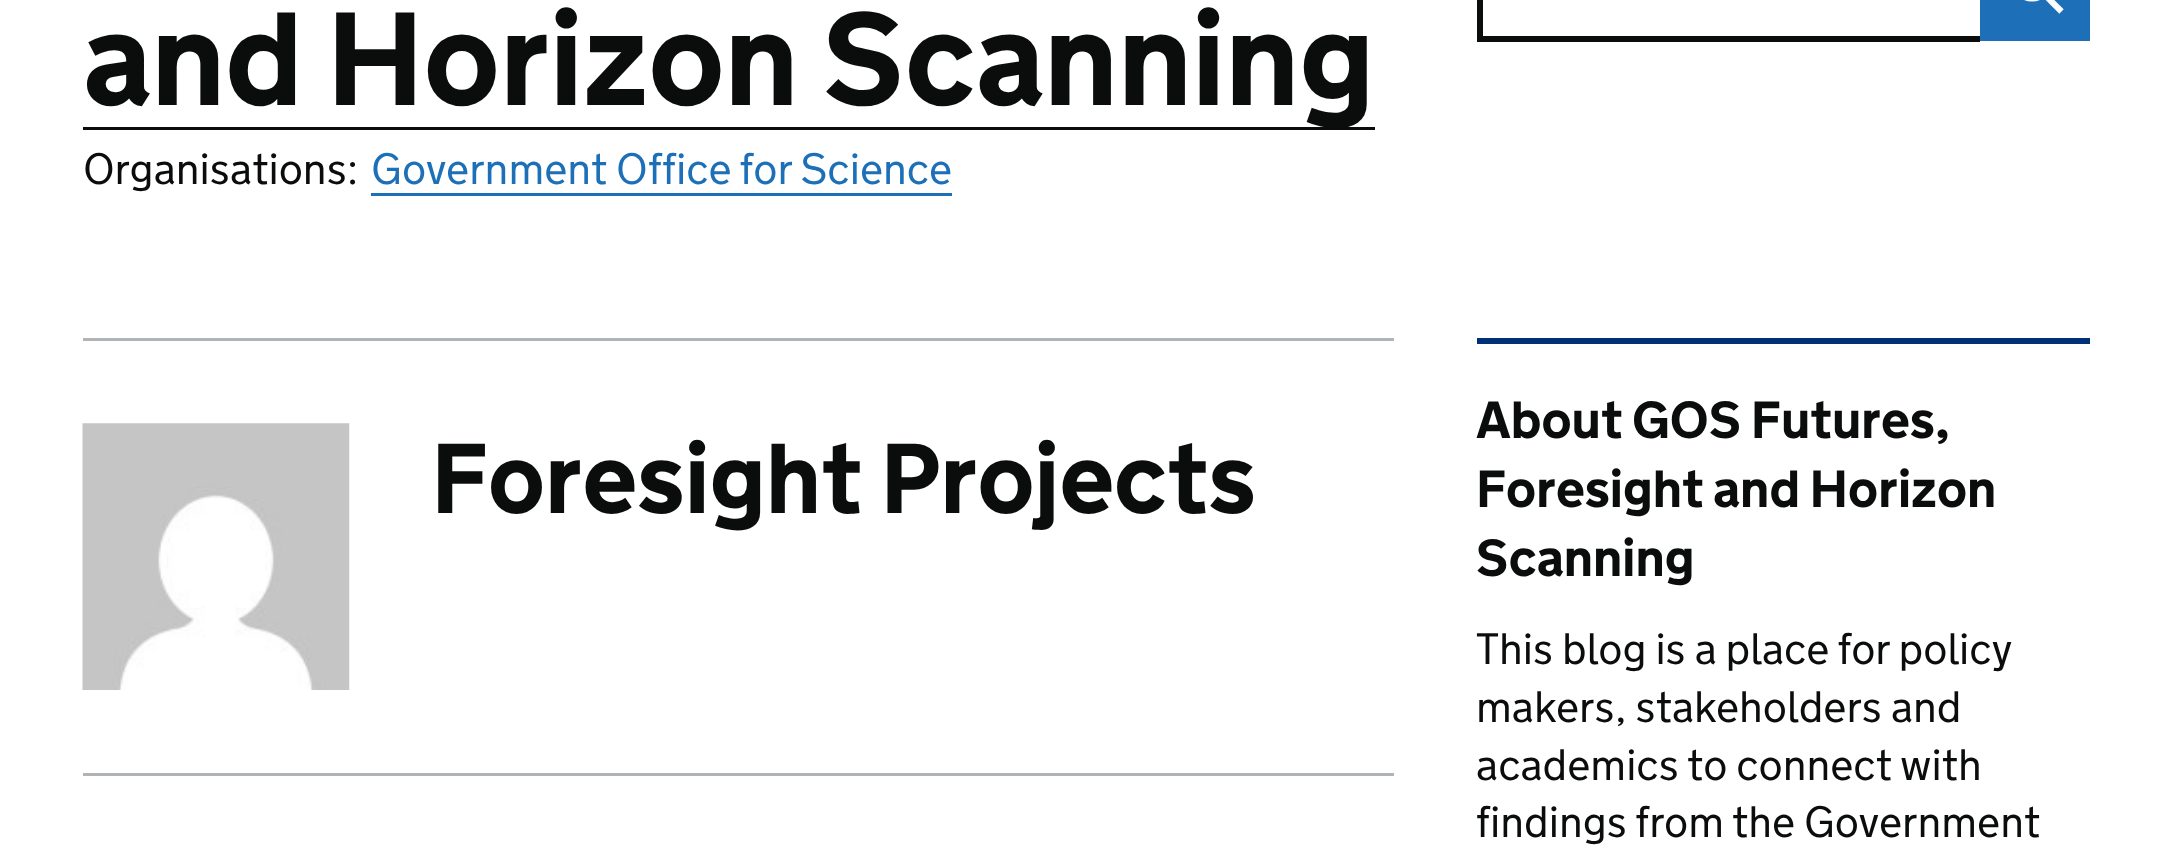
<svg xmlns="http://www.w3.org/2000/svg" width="2172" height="864">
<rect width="100%" height="100%" fill="#fff"/>
<rect x="83" y="127" width="1292" height="3" fill="#0b0c0c"/>
<text x="83" y="105" style="font-family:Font;font-size:132px;font-weight:bold;fill:#0b0c0c">and Horizon Scanning</text>
<text x="83" y="184" style="font-family:Font;font-size:44px;font-weight:300;fill:#0b0c0c">Organisations:</text>
<text x="371" y="184" style="font-family:Font;font-size:44px;font-weight:300;fill:#1d70b8">Government Office for Science</text>
<rect x="371" y="193" width="581" height="3" fill="#1d70b8"/>
<rect x="1477" y="36" width="503" height="6" fill="#0b0c0c"/>
<rect x="1477" width="6" height="41" fill="#0b0c0c"/>
<rect x="1980" width="110" height="41" fill="#1d70b8"/>
<circle cx="2032" cy="-19" r="17.5" fill="none" stroke="#fff" stroke-width="6.1"/>
<path d="M2044-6l17.5 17.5" fill="none" stroke="#fff" stroke-width="6.1"/>
<rect x="83" y="338" width="1311" height="3" fill="#b1b4b6"/>
<image x="82" y="423" width="268" height="267" href="media/1.png"/>
<text x="431" y="513" style="font-family:Font;font-size:99px;font-weight:bold;fill:#0b0c0c">Foresight Projects</text>
<rect x="83" y="773" width="1311" height="3" fill="#b1b4b6"/>
<rect x="1477" y="338" width="613" height="6" fill="#003078"/>
<text x="1476" y="438" style="font-family:Font;font-size:52.25px;font-weight:bold;fill:#0b0c0c">About GOS Futures,</text>
<text x="1476" y="507" style="font-family:Font;font-size:52.25px;font-weight:bold;fill:#0b0c0c">Foresight and Horizon</text>
<text x="1476" y="576" style="font-family:Font;font-size:52.25px;font-weight:bold;fill:#0b0c0c">Scanning</text>
<text x="1476" y="664" style="font-family:Font;font-size:44px;font-weight:300;fill:#0b0c0c">This blog is a place for policy</text>
<text x="1476" y="722" style="font-family:Font;font-size:44px;font-weight:300;fill:#0b0c0c">makers, stakeholders and</text>
<text x="1476" y="780" style="font-family:Font;font-size:44px;font-weight:300;fill:#0b0c0c">academics to connect with</text>
<text x="1476" y="837" style="font-family:Font;font-size:44px;font-weight:300;fill:#0b0c0c">findings from the Government</text>
</svg>
